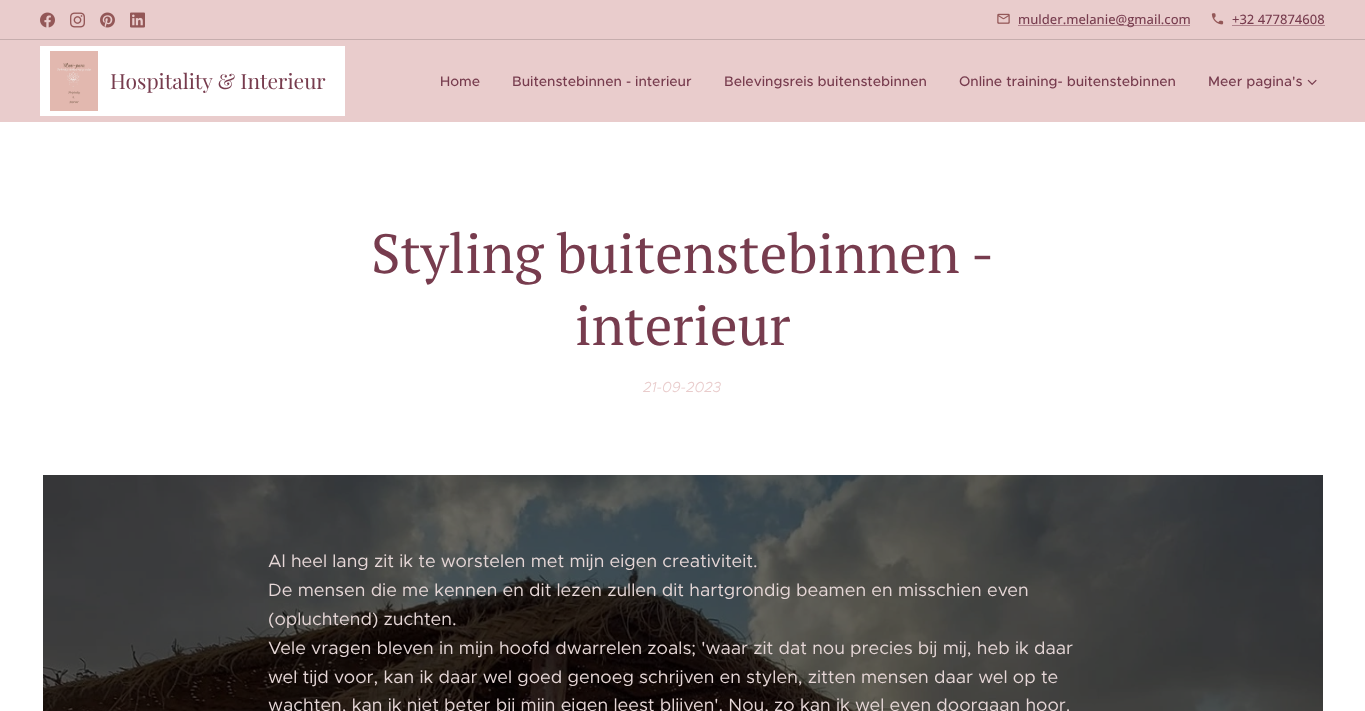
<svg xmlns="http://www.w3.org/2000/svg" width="1365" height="711">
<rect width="100%" height="100%" fill="#fff"/>
<rect width="1365" height="39" fill="#e9cccc"/>
<image x="40" y="12" width="15" height="16" href="media/1.png"/>
<image x="70" y="12" width="15" height="16" href="media/2.png"/>
<image x="100" y="12" width="15" height="16" href="media/3.png"/>
<image x="130" y="12" width="15" height="16" href="media/4.png"/>
<image x="997" y="13" width="13" height="11" href="media/5.png"/>
<rect x="1018" y="25" width="172" height="1" fill="#b0848d"/>
<text x="1018" y="24" style="font-family:Open Sans;font-size:13px;font-weight:500;fill:#773c4e">mulder.melanie@gmail.com</text>
<image x="1211" y="13" width="13" height="12" href="media/6.png"/>
<text x="1232" y="24" style="font-family:Open Sans;font-size:13px;font-weight:500;fill:#773c4e">+32 477874608</text>
<rect x="1232" y="25" width="93" height="1" fill="#b0848d"/>
<rect y="39" width="1365" height="1" fill="#c6adad"/>
<rect y="40" width="1365" height="82" fill="#e9cccc"/>
<rect x="40" y="46" width="305" height="70" fill="#fff"/>
<image x="50" y="51" width="48" height="60" href="media/7.png"/>
<text x="110" y="89" style="font-family:Playfair Display;font-size:21px;fill:#773c4e">Hospitality &amp; Interieur</text>
<text x="440" y="86" style="font-family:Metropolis;font-size:14px;font-weight:500;fill:#773c4e">Home</text>
<text x="512" y="86" style="font-family:Metropolis;font-size:14px;font-weight:500;fill:#773c4e">Buitenstebinnen - interieur</text>
<text x="724" y="86" style="font-family:Metropolis;font-size:14px;font-weight:500;fill:#773c4e">Belevingsreis buitenstebinnen</text>
<text x="959" y="86" style="font-family:Metropolis;font-size:14px;font-weight:500;fill:#773c4e">Online training- buitenstebinnen</text>
<text x="1208" y="86" style="font-family:Metropolis;font-size:14px;font-weight:500;fill:#773c4e">Meer pagina's</text>
<image x="1307" y="79" width="10" height="6" href="media/8.png"/>
<text x="371" y="273" style="font-family:PT Serif;font-size:55px;fill:#773c4e">Styling buitenstebinnen -</text>
<text x="575" y="345" style="font-family:PT Serif;font-size:55px;fill:#773c4e">interieur</text>
<text x="643" y="392" style="font-family:Metropolis;font-size:14.5px;font-weight:300;font-style:italic;fill:#e9cccc">21-09-2023</text>
<image x="43" y="475" width="1280" height="236" href="media/9.png"/>
<text x="268" y="567" style="font-family:Metropolis;font-size:18px;fill:#e6d7d7">Al heel lang zit ik te worstelen met mijn eigen creativiteit.</text>
<text x="268" y="596" style="font-family:Metropolis;font-size:18px;fill:#e6d7d7">De mensen die me kennen en dit lezen zullen dit hartgrondig beamen en misschien even</text>
<text x="268" y="625" style="font-family:Metropolis;font-size:18px;fill:#e6d7d7">(opluchtend) zuchten.</text>
<text x="268" y="654" style="font-family:Metropolis;font-size:18px;fill:#e6d7d7">Vele vragen bleven in mijn hoofd dwarrelen zoals; 'waar zit dat nou precies bij mij, heb ik daar</text>
<text x="268" y="683" style="font-family:Metropolis;font-size:18px;fill:#e6d7d7">wel tijd voor, kan ik daar wel goed genoeg schrijven en stylen, zitten mensen daar wel op te</text>
<text x="268" y="711" style="font-family:Metropolis;font-size:18px;fill:#e6d7d7">wachten, kan ik niet beter bij mijn eigen leest blijven'. Nou, zo kan ik wel even doorgaan hoor.</text>
</svg>
